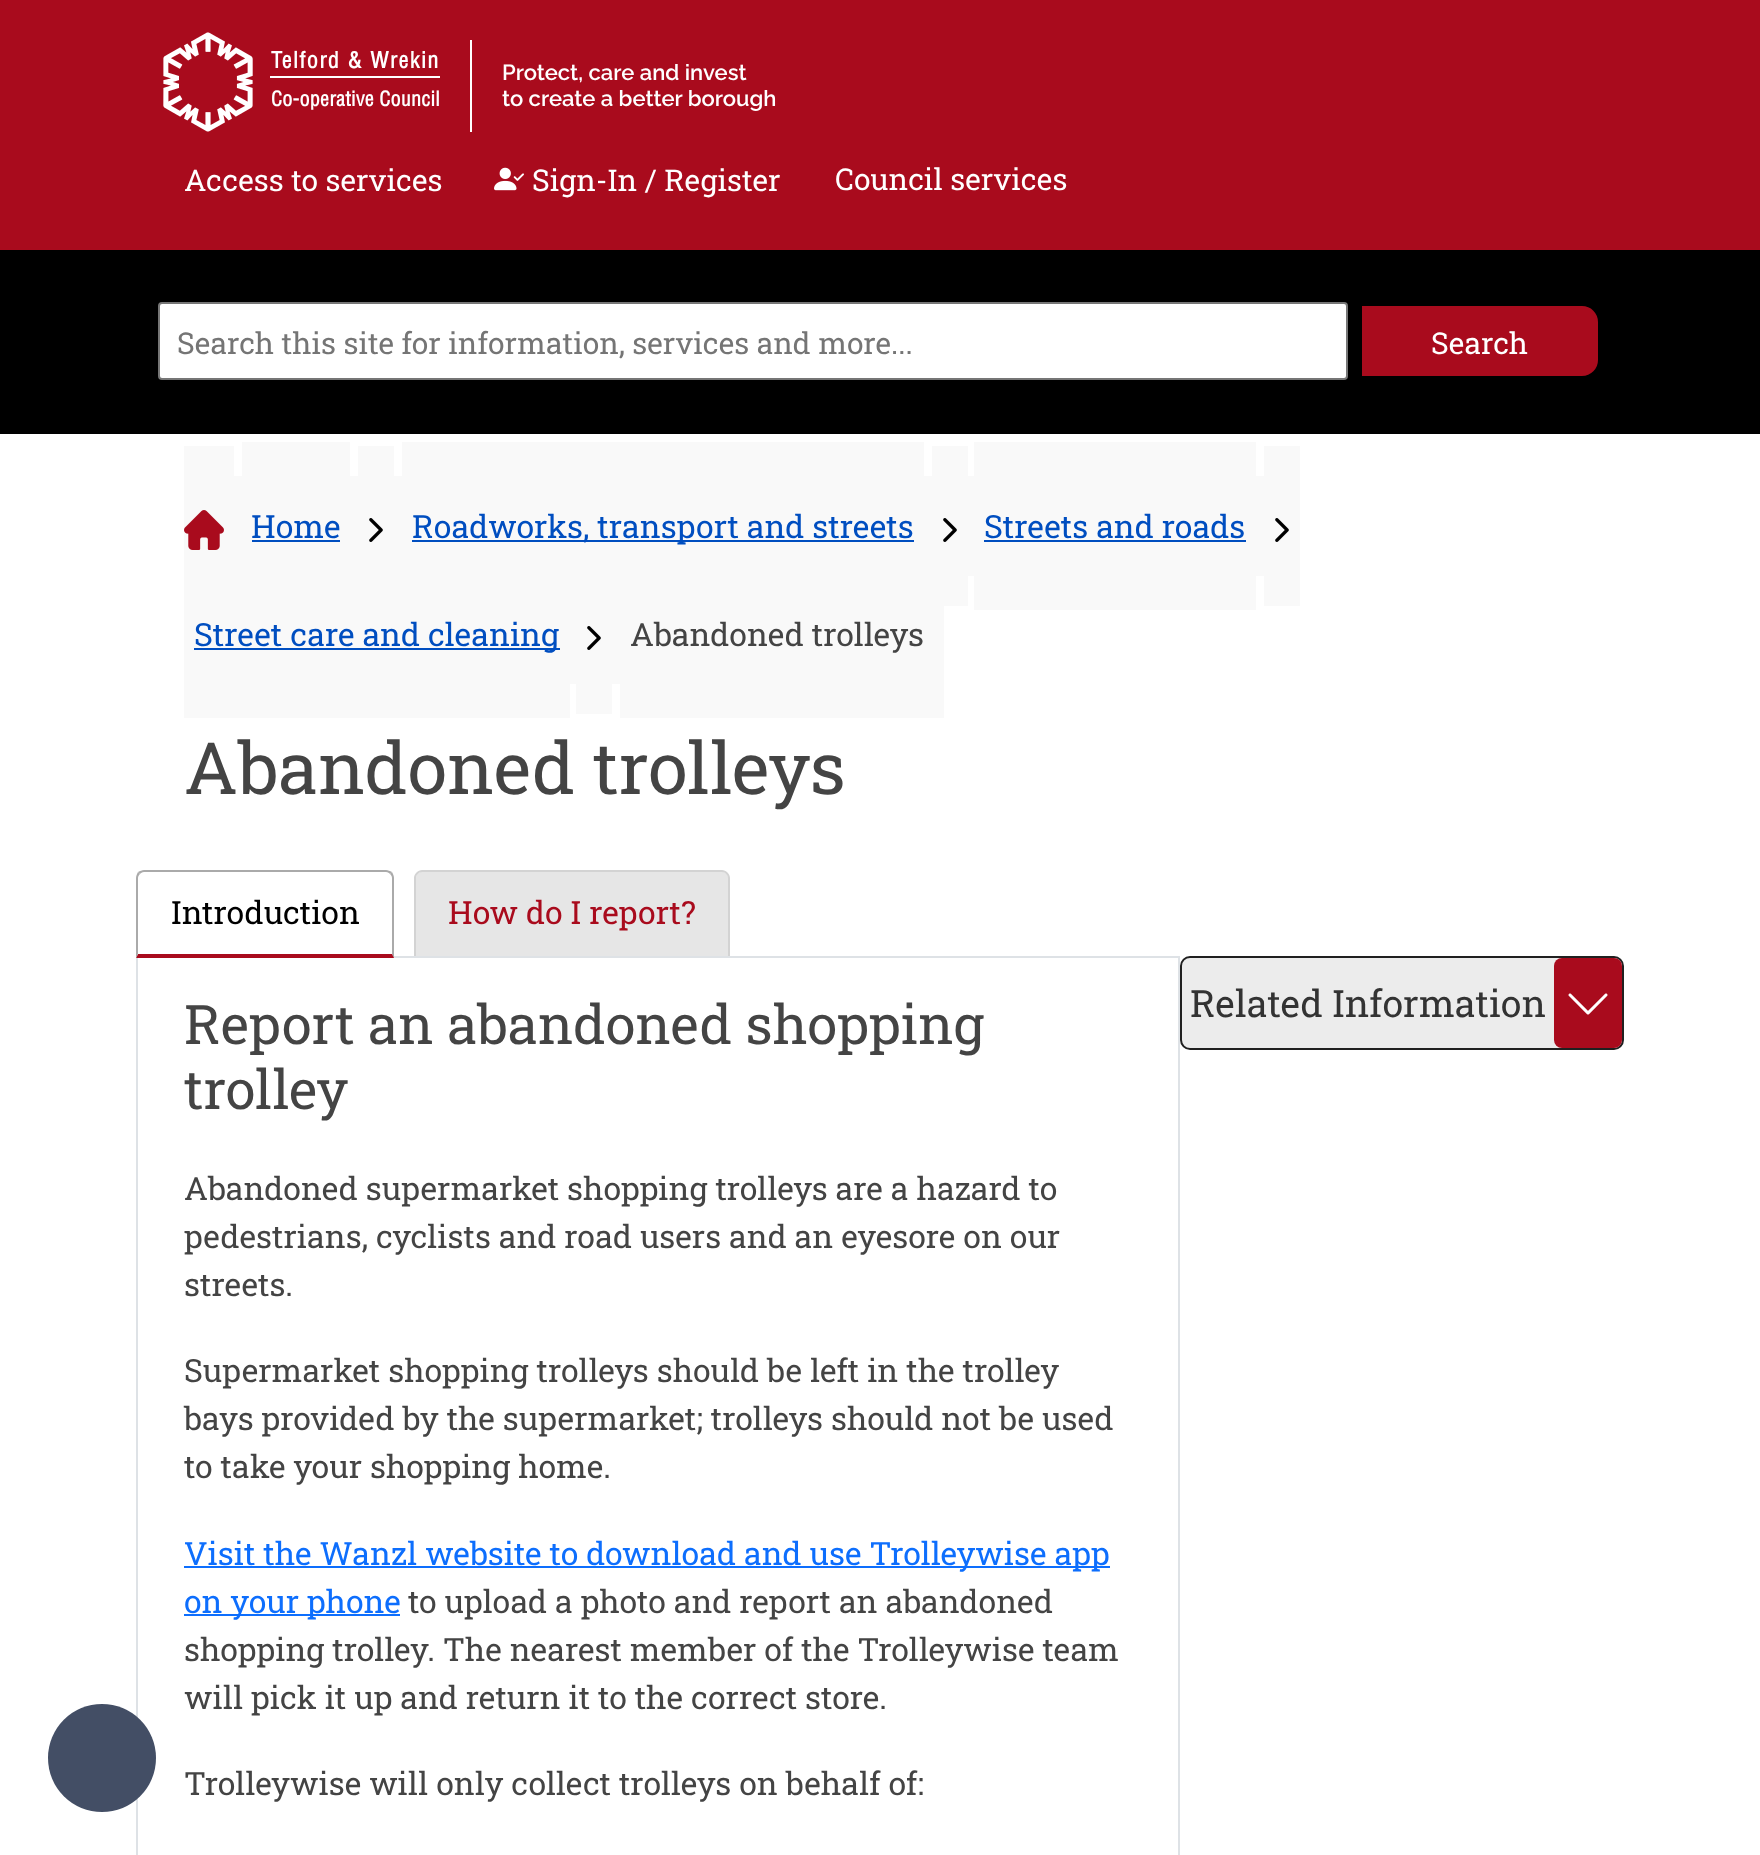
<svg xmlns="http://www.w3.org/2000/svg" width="1760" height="1855">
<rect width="100%" height="100%" fill="#fff"/>
<rect width="1760" height="250" fill="#a90b1d"/>
<image x="163" y="32" width="90" height="100" href="media/1.png"/>
<rect x="270" y="76" width="170" height="2" fill="#fff"/>
<text x="271" y="68" style="font-family:Helvetica;font-size:22px;font-weight:bold;letter-spacing:1.4px;fill:#fff">Telford &amp; Wrekin</text>
<text x="271" y="106" style="font-family:Helvetica;font-size:20px;font-weight:bold;letter-spacing:0.25px;fill:#fff">Co-operative Council</text>
<rect x="470" y="40" width="2" height="92" fill="#fff"/>
<text x="502" y="80" style="font-family:Raleway;font-size:22px;font-weight:600;fill:#fff">Protect, care and invest</text>
<text x="502" y="106" style="font-family:Raleway;font-size:22px;font-weight:600;fill:#fff">to create a better borough</text>
<text x="184" y="191" style="font-family:Roboto Slab;font-size:30px;fill:#fff">Access to services</text>
<image x="494" y="167" width="30" height="24" href="media/2.png"/>
<text x="532" y="191" style="font-family:Roboto Slab;font-size:30px;fill:#fff">Sign-In / Register</text>
<text x="835" y="190" style="font-family:Roboto Slab;font-size:30px;fill:#fff">Council services</text>
<rect y="250" width="1760" height="184" fill="#000"/>
<rect x="159" y="303" width="1188" height="76" rx="3" fill="#fff" stroke="#767676" stroke-width="2"/>
<text x="177" y="354" style="font-family:Roboto Slab;font-size:30px;fill:#757575">Search this site for information, services and more...</text>
<path d="M1360 304h222c10 0 18 8 18 18v38c0 10-8 18-18 18h-222z" fill="#a90b1d" stroke="#000" stroke-width="4"/>
<text x="1431" y="354" style="font-family:Roboto Slab;font-size:30px;fill:#fff">Search</text>
<rect x="184" y="446" width="50" height="104" fill="#f9f9f9"/>
<rect x="234" y="476" width="8" height="74" fill="#f9f9f9"/>
<rect x="242" y="442" width="108" height="108" fill="#f9f9f9"/>
<rect x="350" y="476" width="8" height="74" fill="#f9f9f9"/>
<rect x="358" y="446" width="36" height="104" fill="#f9f9f9"/>
<rect x="394" y="476" width="8" height="74" fill="#f9f9f9"/>
<rect x="402" y="442" width="522" height="142" fill="#f9f9f9"/>
<rect x="924" y="476" width="8" height="74" fill="#f9f9f9"/>
<rect x="932" y="446" width="36" height="160" fill="#f9f9f9"/>
<rect x="968" y="476" width="6" height="100" fill="#f9f9f9"/>
<rect x="974" y="442" width="282" height="168" fill="#f9f9f9"/>
<rect x="1256" y="476" width="8" height="100" fill="#f9f9f9"/>
<rect x="1264" y="446" width="36" height="160" fill="#f9f9f9"/>
<rect x="184" y="550" width="386" height="168" fill="#f9f9f9"/>
<rect x="570" y="584" width="6" height="100" fill="#f9f9f9"/>
<rect x="576" y="584" width="36" height="130" fill="#f9f9f9"/>
<rect x="612" y="584" width="8" height="100" fill="#f9f9f9"/>
<rect x="620" y="550" width="324" height="168" fill="#f9f9f9"/>
<image x="184" y="510" width="40" height="40" href="media/3.png"/>
<text x="251" y="538" style="font-family:Roboto Slab;font-size:32px;fill:#004ec0">Home</text>
<rect x="252" y="540" width="88" height="2" fill="#004ec0"/>
<image x="369" y="518" width="14" height="24" href="media/4.png"/>
<rect x="412" y="540" width="502" height="2" fill="#004ec0"/>
<text x="412" y="538" style="font-family:Roboto Slab;font-size:32px;fill:#004ec0">Roadworks, transport and streets</text>
<image x="943" y="518" width="14" height="24" href="media/4.png"/>
<text x="984" y="538" style="font-family:Roboto Slab;font-size:32px;fill:#004ec0">Streets and roads</text>
<rect x="984" y="540" width="262" height="2" fill="#004ec0"/>
<image x="1275" y="518" width="14" height="24" href="media/4.png"/>
<rect x="194" y="648" width="366" height="2" fill="#004ec0"/>
<text x="194" y="646" style="font-family:Roboto Slab;font-size:32px;fill:#004ec0">Street care and cleaning</text>
<image x="587" y="626" width="14" height="24" href="media/4.png"/>
<text x="630" y="646" style="font-family:Roboto Slab;font-size:32px;fill:#444">Abandoned trolleys</text>
<rect x="137" y="957" width="1042" height="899" fill="none" stroke="#dee2e6" stroke-width="2"/>
<circle cx="102" cy="1758" r="54" fill="#434e65"/>
<text x="184" y="794" style="font-family:Roboto Slab;font-size:72px;fill:#444">Abandoned trolleys</text>
<path d="M144 870c-2 0-4 1-6 2l2 2c1-1 2-2 4-2h242c2 0 3 1 4 2l2-2c-2-1-4-2-6-2z" fill="#aaa"/>
<path d="M394 958v-80c0-2-1-4-2-6l-2 2c1 1 2 2 2 4v76z" fill="#aaa"/>
<path d="M394 958l-2-4h-254l-2 4z" fill="#a90b1d"/>
<path d="M136 958l2-4v-76c0-2 1-3 2-4l-2-2c-1 2-2 4-2 6z" fill="#aaa"/>
<text x="171" y="924" style="font-family:Roboto Slab;font-size:32px;fill:#000">Introduction</text>
<path d="M422 872h300c3.5 0 6 2.5 6 6v78h-312v-78c0-3.5 2.5-6 6-6z" fill="#e6e6e6"/>
<path d="M422 870h300c4 0 8 4 8 8v78h-316v-78c0-4 4-8 8-8zm0 2h300c3 0 6 3 6 6v78h-312v-78c0-3 3-6 6-6z" fill="#d3d3d3" fill-rule="evenodd"/>
<text x="448" y="924" style="font-family:Roboto Slab;font-size:32px;fill:#a90b1d">How do I report?</text>
<text x="184" y="1044" style="font-family:Roboto Slab;font-size:54.4px;fill:#444">Report an abandoned shopping</text>
<text x="184" y="1109" style="font-family:Roboto Slab;font-size:54.4px;fill:#444">trolley</text>
<text x="184" y="1200" style="font-family:Roboto Slab;font-size:32px;fill:#444">Abandoned supermarket shopping trolleys are a hazard to</text>
<text x="184" y="1248" style="font-family:Roboto Slab;font-size:32px;fill:#444">pedestrians, cyclists and road users and an eyesore on our</text>
<text x="184" y="1296" style="font-family:Roboto Slab;font-size:32px;fill:#444">streets.</text>
<text x="184" y="1382" style="font-family:Roboto Slab;font-size:32px;fill:#444">Supermarket shopping trolleys should be left in the trolley</text>
<text x="184" y="1430" style="font-family:Roboto Slab;font-size:32px;fill:#444">bays provided by the supermarket; trolleys should not be used</text>
<text x="184" y="1478" style="font-family:Roboto Slab;font-size:32px;fill:#444">to take your shopping home.</text>
<rect x="184" y="1566" width="926" height="2" fill="#0d6efd"/>
<text x="184" y="1565" style="font-family:Roboto Slab;font-size:32px;fill:#0d6efd">Visit the Wanzl website to download and use Trolleywise app</text>
<rect x="184" y="1614" width="216" height="2" fill="#0d6efd"/>
<text x="184" y="1613" style="font-family:Roboto Slab;font-size:32px;fill:#0d6efd">on your phone</text>
<text x="408" y="1613" style="font-family:Roboto Slab;font-size:32px;fill:#444">to upload a photo and report an abandoned</text>
<text x="184" y="1661" style="font-family:Roboto Slab;font-size:32px;fill:#444">shopping trolley. The nearest member of the Trolleywise team</text>
<text x="184" y="1709" style="font-family:Roboto Slab;font-size:32px;fill:#444">will pick it up and return it to the correct store.</text>
<text x="184" y="1795" style="font-family:Roboto Slab;font-size:32px;fill:#444">Trolleywise will only collect trolleys on behalf of:</text>
<rect x="1181" y="957" width="442" height="92" rx="9" fill="#ececec" stroke="#202020" stroke-width="2"/>
<text x="1190" y="1017" style="font-family:Roboto Slab;font-size:37.5px;fill:#333">Related Information</text>
<rect x="1554" y="958" width="68" height="90" rx="8" fill="#a90b1d"/>
<image x="1568" y="993" width="40" height="22" href="media/5.png"/>
</svg>
